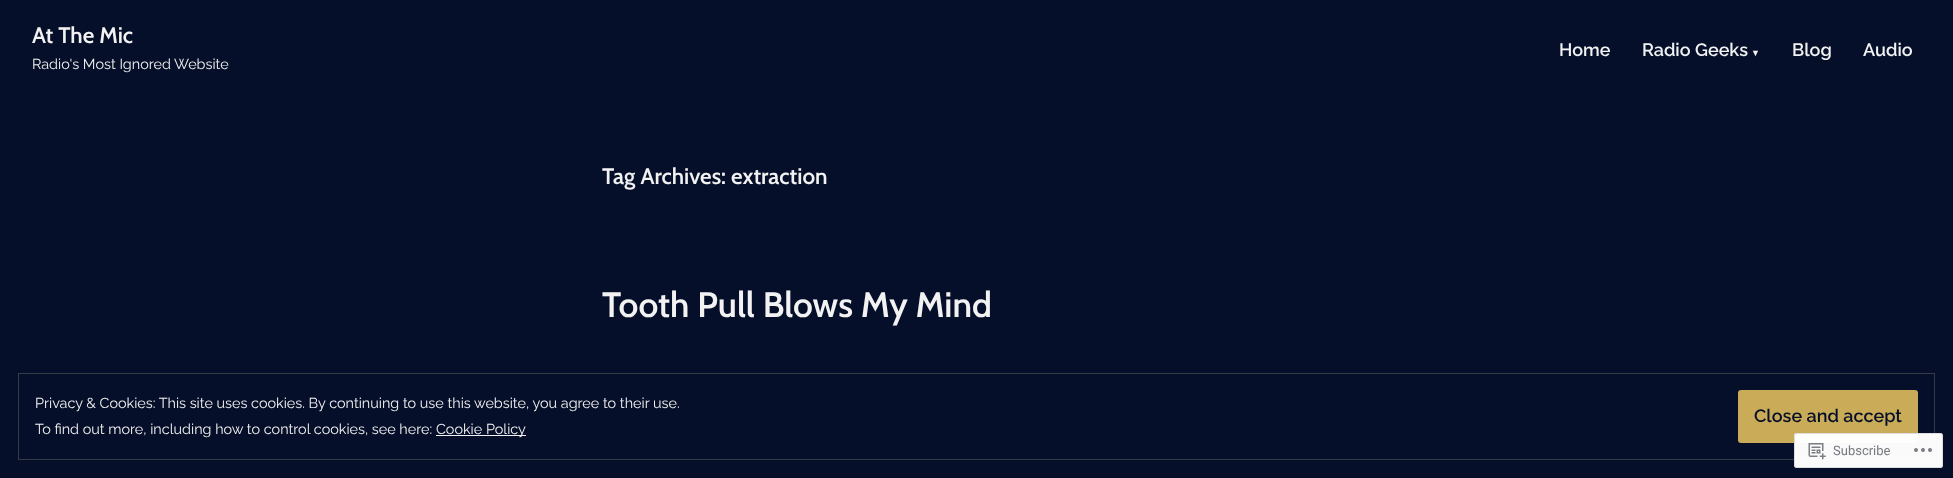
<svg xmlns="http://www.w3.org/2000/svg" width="1953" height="478">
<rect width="100%" height="100%" fill="#060f29"/>
<text x="32" y="43" style="font-family:Cabin;font-size:22.5px;font-weight:600;fill:#f2f2f2">At The Mic</text>
<text x="32" y="69" style="font-family:Raleway;font-size:14.4px;fill:#f2f2f2">Radio's Most Ignored Website</text>
<text x="1559" y="56" style="font-family:Raleway;font-size:18px;font-weight:600;fill:#f2f2f2">Home</text>
<text x="1642" y="56" style="font-family:Raleway;font-size:18px;font-weight:600;fill:#f2f2f2">Radio Geeks</text>
<text x="1751" y="56" style="font-family:Liberation Serif;font-size:9px;font-weight:bold;fill:#f2f2f2">▼</text>
<text x="1792" y="56" style="font-family:Raleway;font-size:18px;font-weight:600;fill:#f2f2f2">Blog</text>
<text x="1863" y="56" style="font-family:Raleway;font-size:18px;font-weight:600;fill:#f2f2f2">Audio</text>
<text x="602" y="184" style="font-family:Cabin;font-size:22.5px;font-weight:600;fill:#f2f2f2">Tag Archives: extraction</text>
<text x="602" y="317" style="font-family:Cabin;font-size:35.25px;font-weight:600;fill:#f2f2f2">Tooth Pull Blows My Mind</text>
<rect x="18.5" y="373.5" width="1916" height="86" fill="none" stroke="#353a46"/>
<text x="35" y="408" style="font-family:Raleway;font-size:14.4px;fill:#f2f2f2">Privacy &amp; Cookies: This site uses cookies. By continuing to use this website, you agree to their use.</text>
<rect x="1738" y="390" width="180" height="53" rx="3" fill="#caab57"/>
<text x="1754" y="422" style="font-family:Raleway;font-size:18px;font-weight:600;fill:#060f29">Close and accept</text>
<text x="35" y="434" style="font-family:Raleway;font-size:14.4px;fill:#f2f2f2">To find out more, including how to control cookies, see here:</text>
<rect x="436" y="435" width="90" height="1" fill="#f2f2f2"/>
<text x="436" y="434" style="font-family:Raleway;font-size:14.4px;fill:#f2f2f2">Cookie Policy</text>
<rect x="1794" y="433" width="149" height="35" rx="3" fill="#fffffffa"/>
<rect x="1794.5" y="433.5" width="148" height="34" rx="2.5" fill="none" stroke="#dcdcdefa"/>
<image x="1808" y="443" width="18" height="17" href="media/1.png"/>
<text x="1833" y="455" style="font-family:Roboto;font-size:13px;fill:#767a80">Subscribe</text>
<image x="1914" y="448" width="18" height="4" href="media/2.png"/>
</svg>
